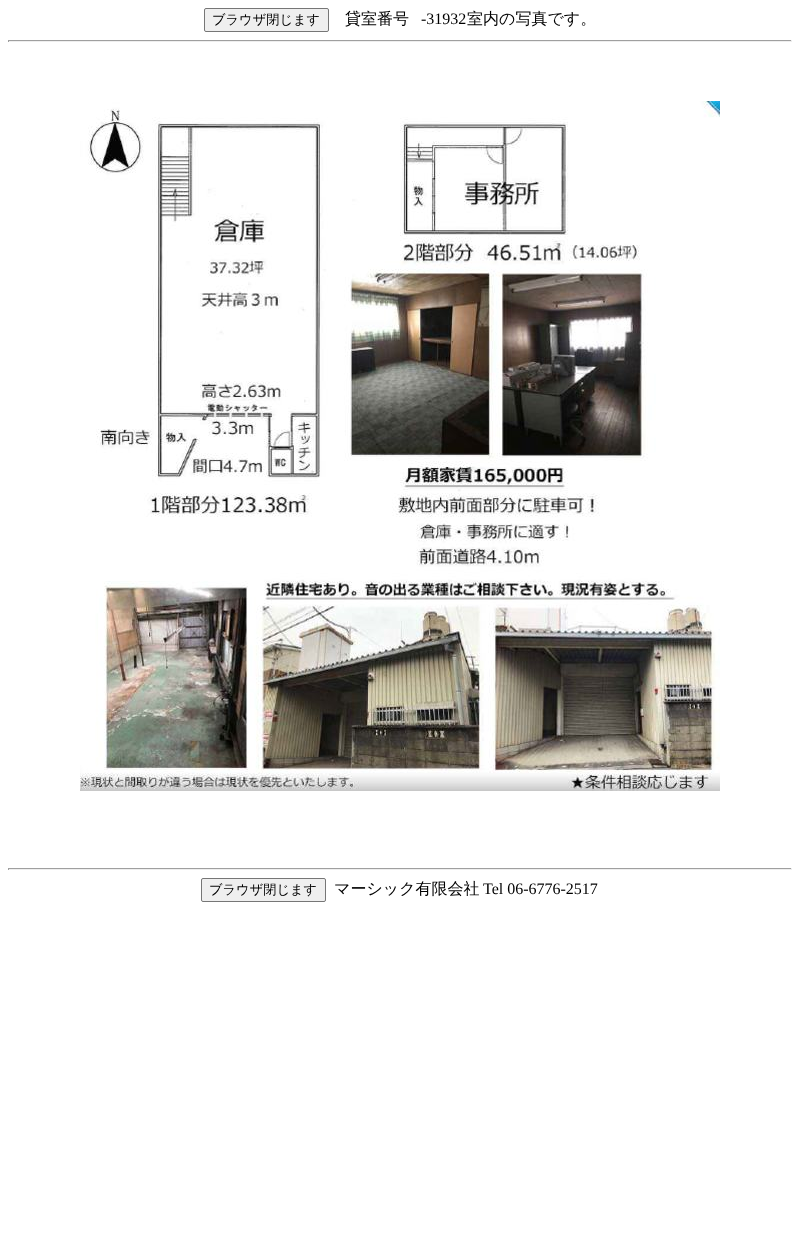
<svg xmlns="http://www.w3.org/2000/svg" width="800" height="1243">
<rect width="100%" height="100%" fill="#fff"/>
<rect x="204.5" y="8.5" width="124" height="23" rx="1.5" fill="#efefef" stroke="#767676"/>
<text x="212" y="24" style="font-family:WenQuanYi Zen Hei;font-size:13.25px;font-weight:500;fill:#000">ブラウザ閉じます</text>
<text x="345" y="24" style="font-family:WenQuanYi Zen Hei;font-size:16px;font-weight:500;fill:#000">貸室番号</text>
<text x="421" y="24" style="font-family:Liberation Serif;font-size:16px;fill:#000">-31932</text>
<text x="467" y="24" style="font-family:WenQuanYi Zen Hei;font-size:16px;font-weight:500;fill:#000">室内の写真です。</text>
<rect x="8" y="40" width="784" height="1" fill="#9f9f9f"/>
<rect x="791" y="40" width="1" height="2" fill="#eee"/>
<rect x="8" y="41" width="784" height="1" fill="#eee"/>
<rect x="8" y="40" width="1" height="2" fill="#9f9f9f"/>
<image x="80" y="101" width="640" height="690" href="media/1.png"/>
<rect x="8" y="868" width="784" height="1" fill="#9f9f9f"/>
<rect x="791" y="868" width="1" height="2" fill="#eee"/>
<rect x="8" y="869" width="784" height="1" fill="#eee"/>
<rect x="8" y="868" width="1" height="2" fill="#9f9f9f"/>
<rect x="201.5" y="878.5" width="124" height="23" rx="1.5" fill="#efefef" stroke="#767676"/>
<text x="209" y="894" style="font-family:WenQuanYi Zen Hei;font-size:13.25px;font-weight:500;fill:#000">ブラウザ閉じます</text>
<text x="334" y="894" style="font-family:WenQuanYi Zen Hei;font-size:16px;font-weight:500;fill:#000">マーシック有限会社</text>
<text x="483" y="894" style="font-family:Liberation Serif;font-size:16px;fill:#000">Tel 06-6776-2517</text>
</svg>
